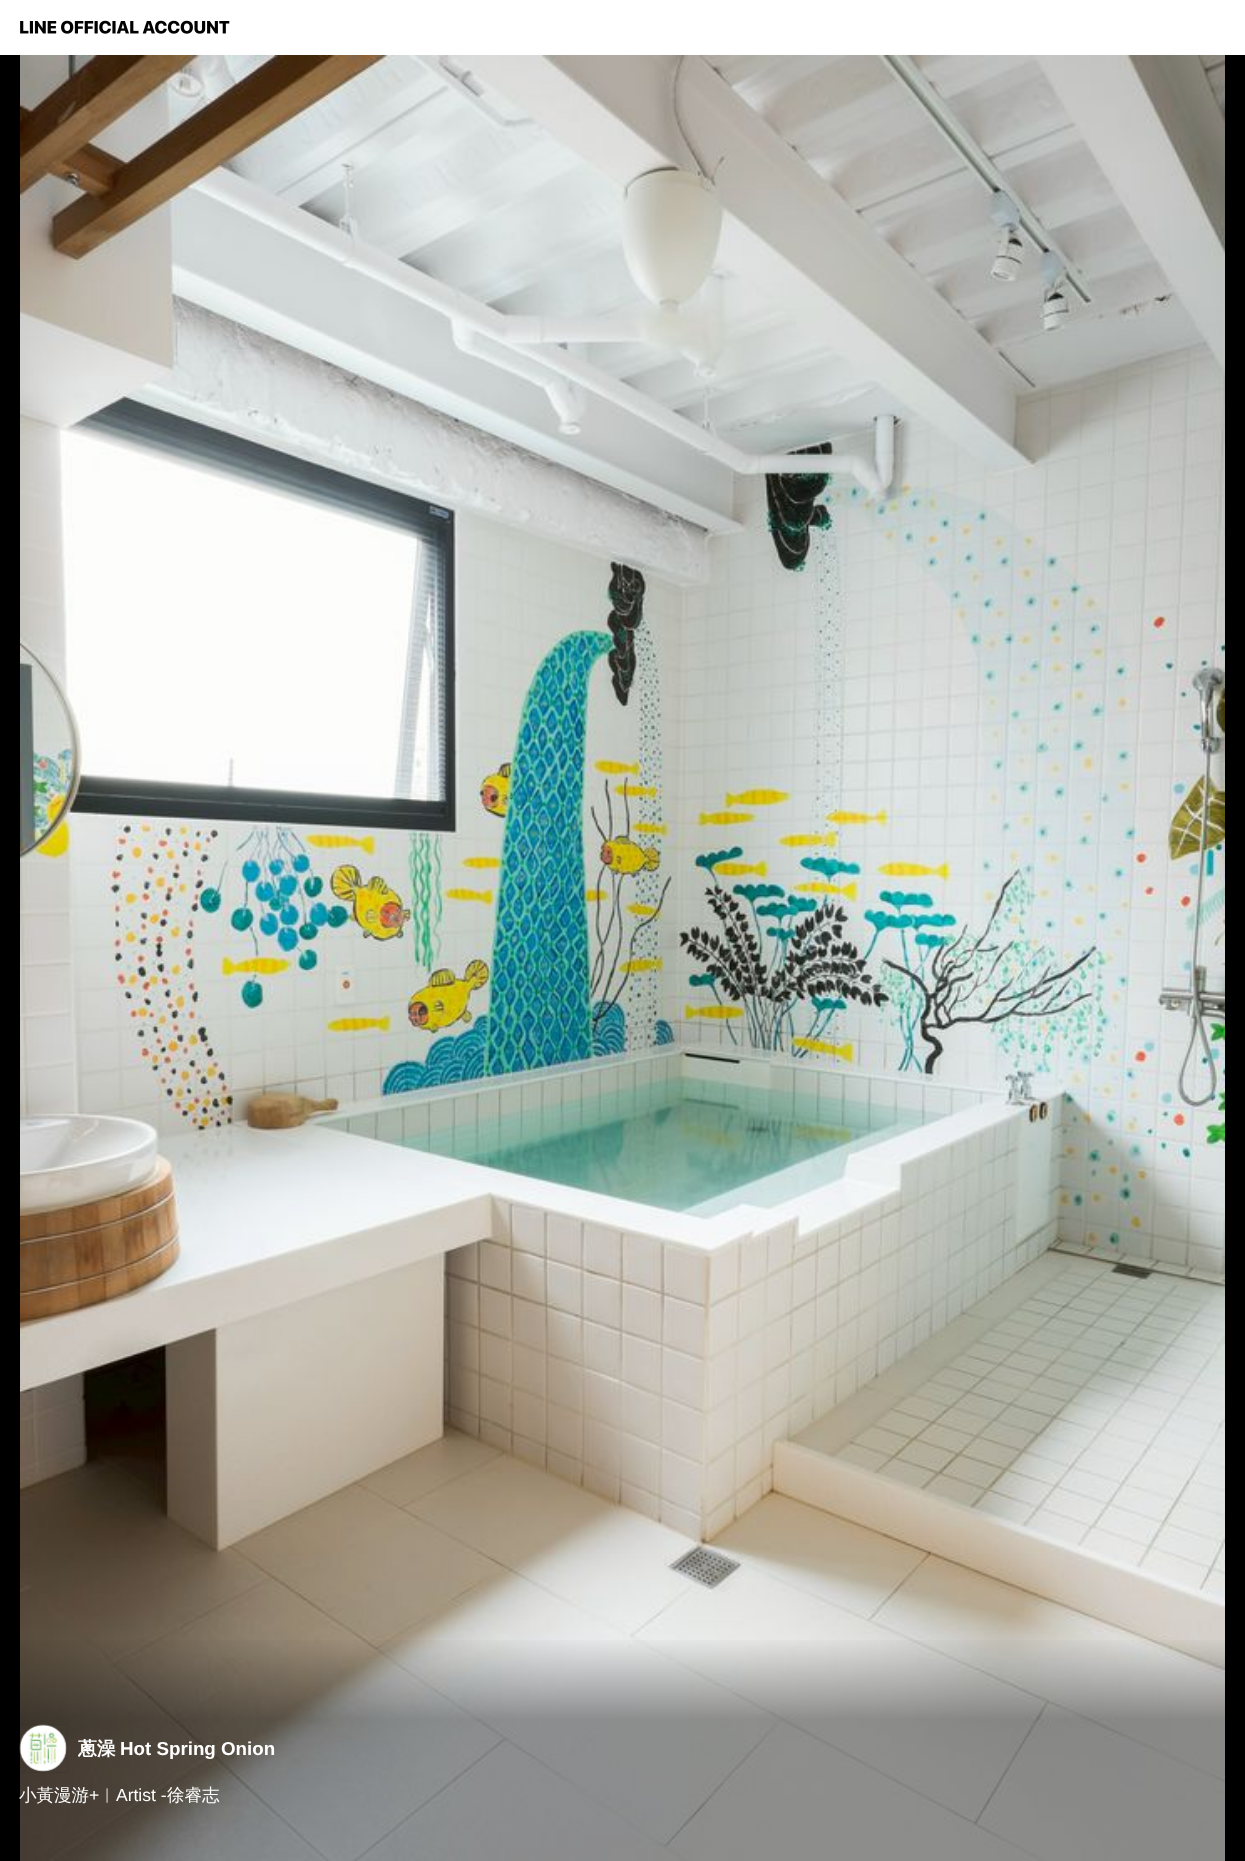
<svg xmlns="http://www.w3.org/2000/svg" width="1245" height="1861">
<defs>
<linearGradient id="g1" gradientUnits="userSpaceOnUse" x1="623" y1="1636" x2="623" y2="1861"><stop offset="0" stop-color="#000" stop-opacity="0"/><stop offset="0.37" stop-color="#000" stop-opacity="0.4"/><stop offset="1" stop-color="#000" stop-opacity="0.4"/></linearGradient>
<clipPath id="clip1"><rect x="78" y="1738" width="1148" height="21"/></clipPath>
</defs>
<rect width="100%" height="100%" fill="#000"/>
<rect width="1245" height="55" fill="#fff"/>
<image x="20" y="20" width="210" height="14" href="media/1.png"/>
<image x="20" y="55" width="1205" height="1806" href="media/2.png"/>
<rect x="20" y="1640" width="1205" height="221" fill="url(#g1)"/>
<rect x="19.5" y="1724.5" width="48" height="48" fill="none" stroke="#0000000d"/>
<image x="19" y="1724" width="48" height="48" href="media/3.png"/>
<g clip-path="url(#clip1)">
<text x="78" y="1755" style="font-family:WenQuanYi Zen Hei;font-size:18.75px;font-weight:bold;fill:#fff">蔥澡</text>
</g>
<text x="120" y="1755" style="font-family:Liberation Sans;font-size:18.75px;font-weight:bold;fill:#fff">Hot Spring Onion</text>
<text x="19" y="1801" style="font-family:WenQuanYi Zen Hei;font-size:17.5px;font-weight:500;fill:#fff">小黃漫游</text>
<text x="89" y="1801" style="font-family:Liberation Sans;font-size:17.5px;fill:#fff">+</text>
<text x="99" y="1801" style="font-family:WenQuanYi Zen Hei;font-size:17.5px;font-weight:500;fill:#fff">︱</text>
<text x="116" y="1801" style="font-family:Liberation Sans;font-size:17.5px;fill:#fff">Artist -</text>
<text x="167" y="1801" style="font-family:WenQuanYi Zen Hei;font-size:17.5px;font-weight:500;fill:#fff">徐睿志</text>
</svg>
